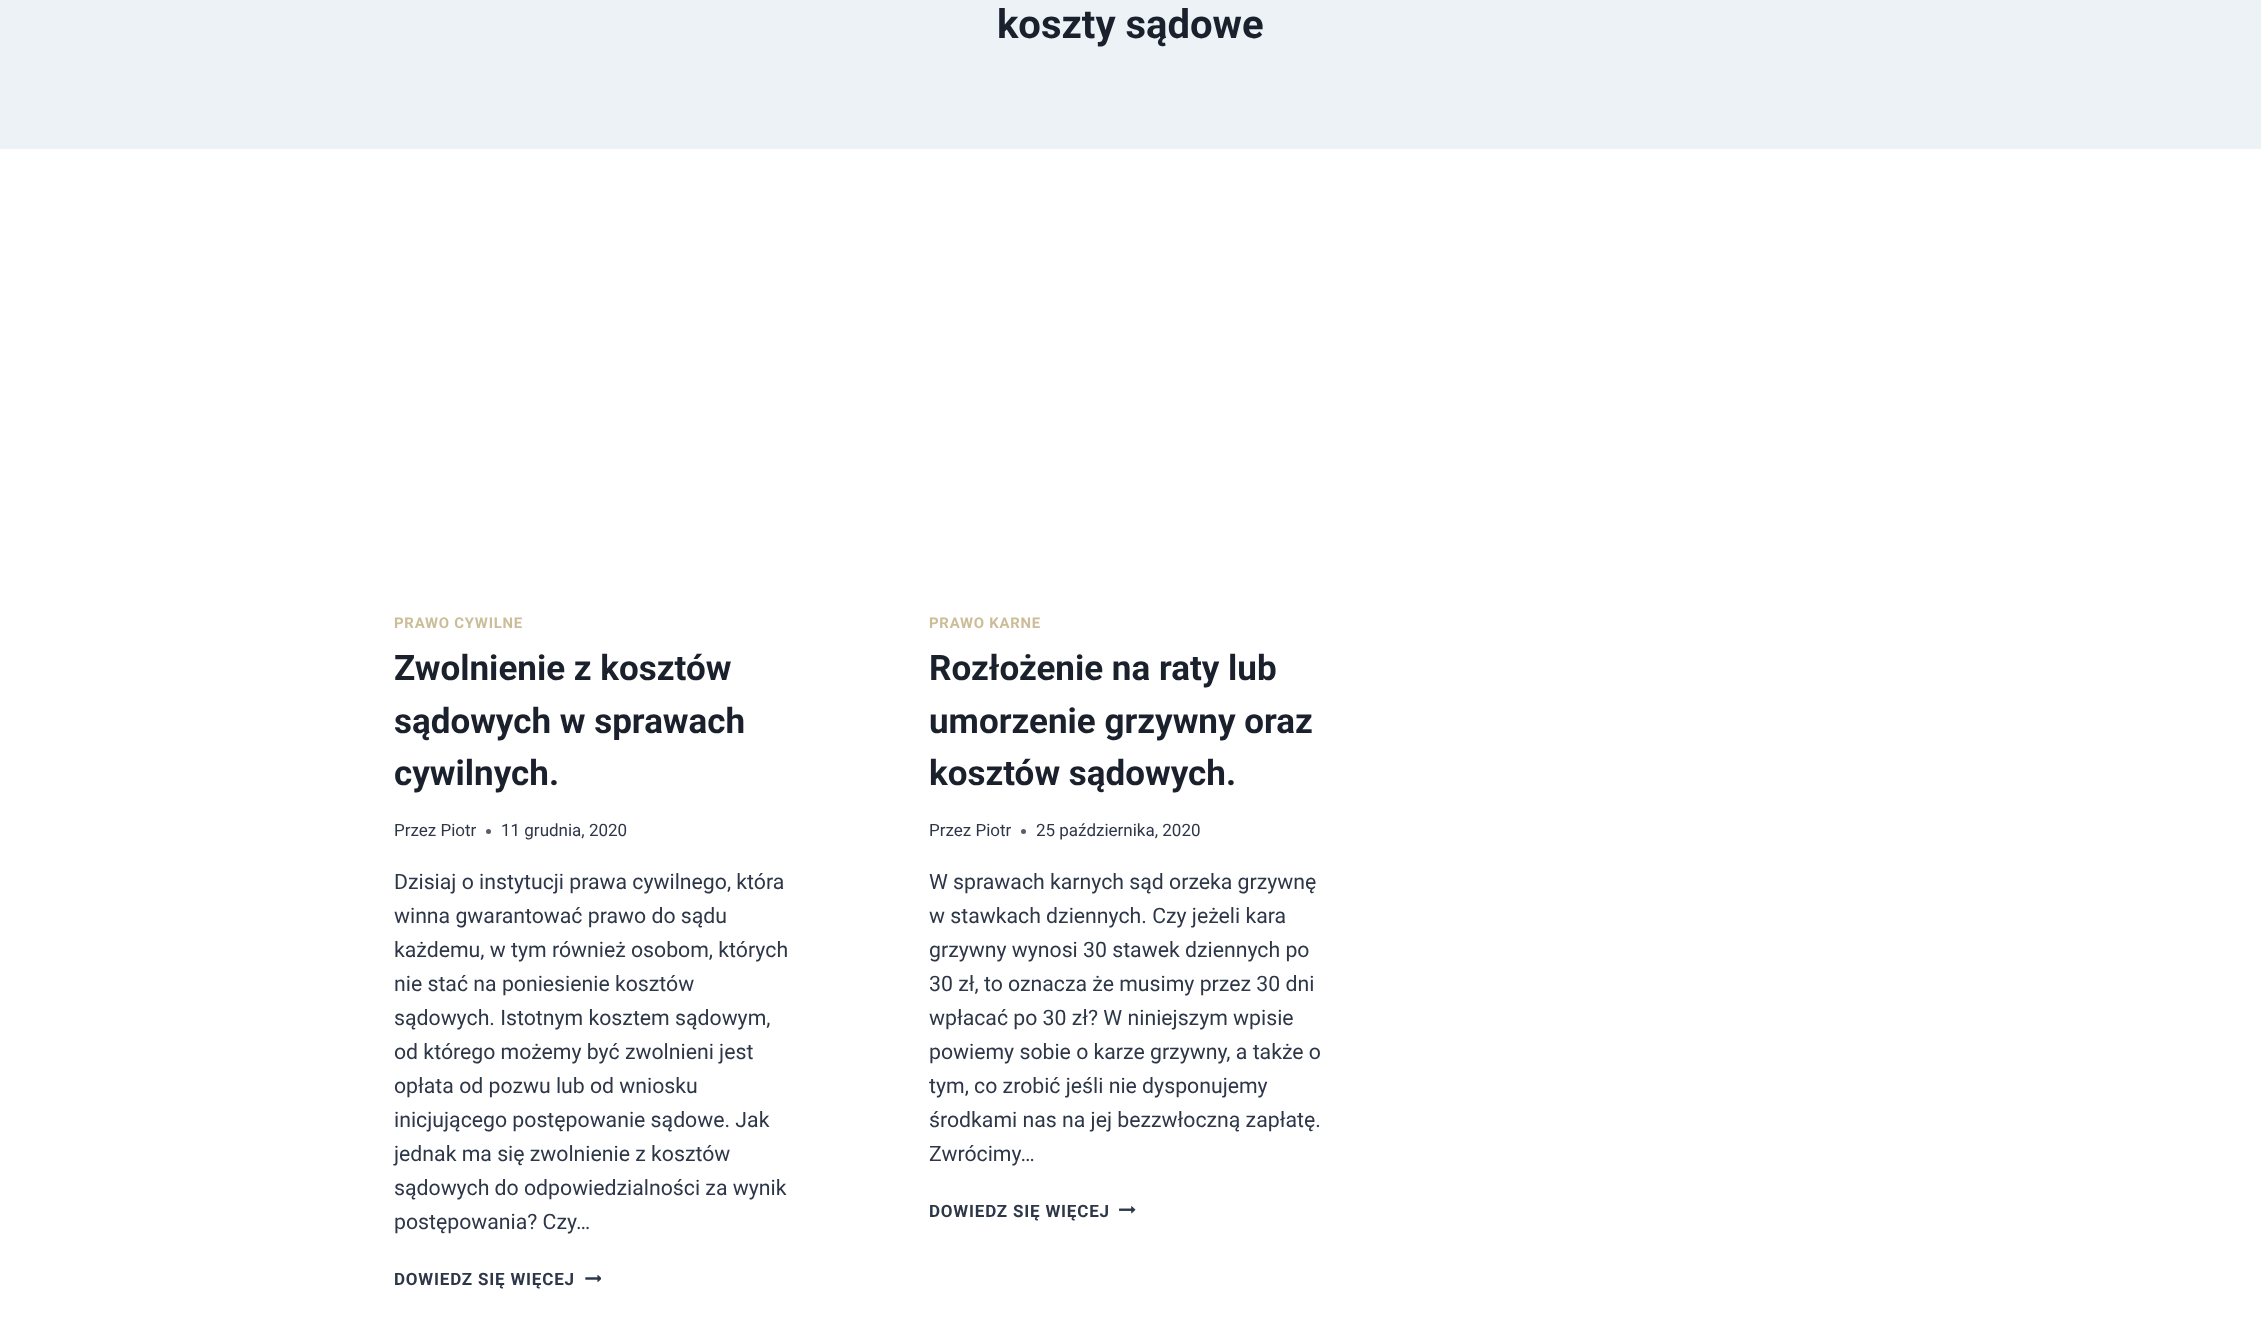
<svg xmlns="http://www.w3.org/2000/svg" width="2261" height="1318">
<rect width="100%" height="100%" fill="#fff"/>
<rect width="2261" height="149" fill="#edf2f7"/>
<text x="997" y="38" style="font-family:Roboto;font-size:40px;font-weight:bold;fill:#1a202c">koszty sądowe</text>
<text x="394" y="628" style="font-family:Roboto;font-size:14.9px;font-weight:bold;letter-spacing:0.75px;fill:#ccbd99">PRAWO CYWILNE</text>
<text x="394" y="680" style="font-family:Roboto;font-size:35px;font-weight:bold;fill:#1a202c">Zwolnienie z kosztów</text>
<text x="394" y="733" style="font-family:Roboto;font-size:35px;font-weight:bold;fill:#1a202c">sądowych w sprawach</text>
<text x="394" y="785" style="font-family:Roboto;font-size:35px;font-weight:bold;fill:#1a202c">cywilnych.</text>
<text x="394" y="836" style="font-family:Roboto;font-size:17px;fill:#2d3748">Przez Piotr</text>
<circle cx="488.5" cy="831.5" r="2.5" fill="#575f6d"/>
<text x="501" y="836" style="font-family:Roboto;font-size:17px;fill:#2d3748">11 grudnia, 2020</text>
<text x="394" y="889" style="font-family:Roboto;font-size:21.25px;fill:#2d3748">Dzisiaj o instytucji prawa cywilnego, która</text>
<text x="394" y="923" style="font-family:Roboto;font-size:21.25px;fill:#2d3748">winna gwarantować prawo do sądu</text>
<text x="394" y="957" style="font-family:Roboto;font-size:21.25px;fill:#2d3748">każdemu, w tym również osobom, których</text>
<text x="394" y="991" style="font-family:Roboto;font-size:21.25px;fill:#2d3748">nie stać na poniesienie kosztów</text>
<text x="394" y="1025" style="font-family:Roboto;font-size:21.25px;fill:#2d3748">sądowych. Istotnym kosztem sądowym,</text>
<text x="394" y="1059" style="font-family:Roboto;font-size:21.25px;fill:#2d3748">od którego możemy być zwolnieni jest</text>
<text x="394" y="1093" style="font-family:Roboto;font-size:21.25px;fill:#2d3748">opłata od pozwu lub od wniosku</text>
<text x="394" y="1127" style="font-family:Roboto;font-size:21.25px;fill:#2d3748">inicjującego postępowanie sądowe. Jak</text>
<text x="394" y="1161" style="font-family:Roboto;font-size:21.25px;fill:#2d3748">jednak ma się zwolnienie z kosztów</text>
<text x="394" y="1195" style="font-family:Roboto;font-size:21.25px;fill:#2d3748">sądowych do odpowiedzialności za wynik</text>
<text x="394" y="1229" style="font-family:Roboto;font-size:21.25px;fill:#2d3748">postępowania? Czy…</text>
<text x="394" y="1285" style="font-family:Roboto;font-size:17px;font-weight:bold;letter-spacing:0.8px;fill:#2d3748">DOWIEDZ SIĘ WIĘCEJ</text>
<image x="585" y="1274" width="16" height="9" href="media/1.png"/>
<text x="929" y="628" style="font-family:Roboto;font-size:14.9px;font-weight:bold;letter-spacing:0.75px;fill:#ccbd99">PRAWO KARNE</text>
<text x="929" y="680" style="font-family:Roboto;font-size:35px;font-weight:bold;fill:#1a202c">Rozłożenie na raty lub</text>
<text x="929" y="733" style="font-family:Roboto;font-size:35px;font-weight:bold;fill:#1a202c">umorzenie grzywny oraz</text>
<text x="929" y="785" style="font-family:Roboto;font-size:35px;font-weight:bold;fill:#1a202c">kosztów sądowych.</text>
<text x="929" y="836" style="font-family:Roboto;font-size:17px;fill:#2d3748">Przez Piotr</text>
<circle cx="1023.5" cy="831.5" r="2.5" fill="#575f6d"/>
<text x="1036" y="836" style="font-family:Roboto;font-size:17px;fill:#2d3748">25 października, 2020</text>
<text x="929" y="889" style="font-family:Roboto;font-size:21.25px;fill:#2d3748">W sprawach karnych sąd orzeka grzywnę</text>
<text x="929" y="923" style="font-family:Roboto;font-size:21.25px;fill:#2d3748">w stawkach dziennych. Czy jeżeli kara</text>
<text x="929" y="957" style="font-family:Roboto;font-size:21.25px;fill:#2d3748">grzywny wynosi 30 stawek dziennych po</text>
<text x="929" y="991" style="font-family:Roboto;font-size:21.25px;fill:#2d3748">30 zł, to oznacza że musimy przez 30 dni</text>
<text x="929" y="1025" style="font-family:Roboto;font-size:21.25px;fill:#2d3748">wpłacać po 30 zł? W niniejszym wpisie</text>
<text x="929" y="1059" style="font-family:Roboto;font-size:21.25px;fill:#2d3748">powiemy sobie o karze grzywny, a także o</text>
<text x="929" y="1093" style="font-family:Roboto;font-size:21.25px;fill:#2d3748">tym, co zrobić jeśli nie dysponujemy</text>
<text x="929" y="1127" style="font-family:Roboto;font-size:21.25px;fill:#2d3748">środkami nas na jej bezzwłoczną zapłatę.</text>
<text x="929" y="1161" style="font-family:Roboto;font-size:21.25px;fill:#2d3748">Zwrócimy…</text>
<text x="929" y="1217" style="font-family:Roboto;font-size:17px;font-weight:bold;letter-spacing:0.8px;fill:#2d3748">DOWIEDZ SIĘ WIĘCEJ</text>
<image x="1119" y="1206" width="17" height="8" href="media/2.png"/>
</svg>
